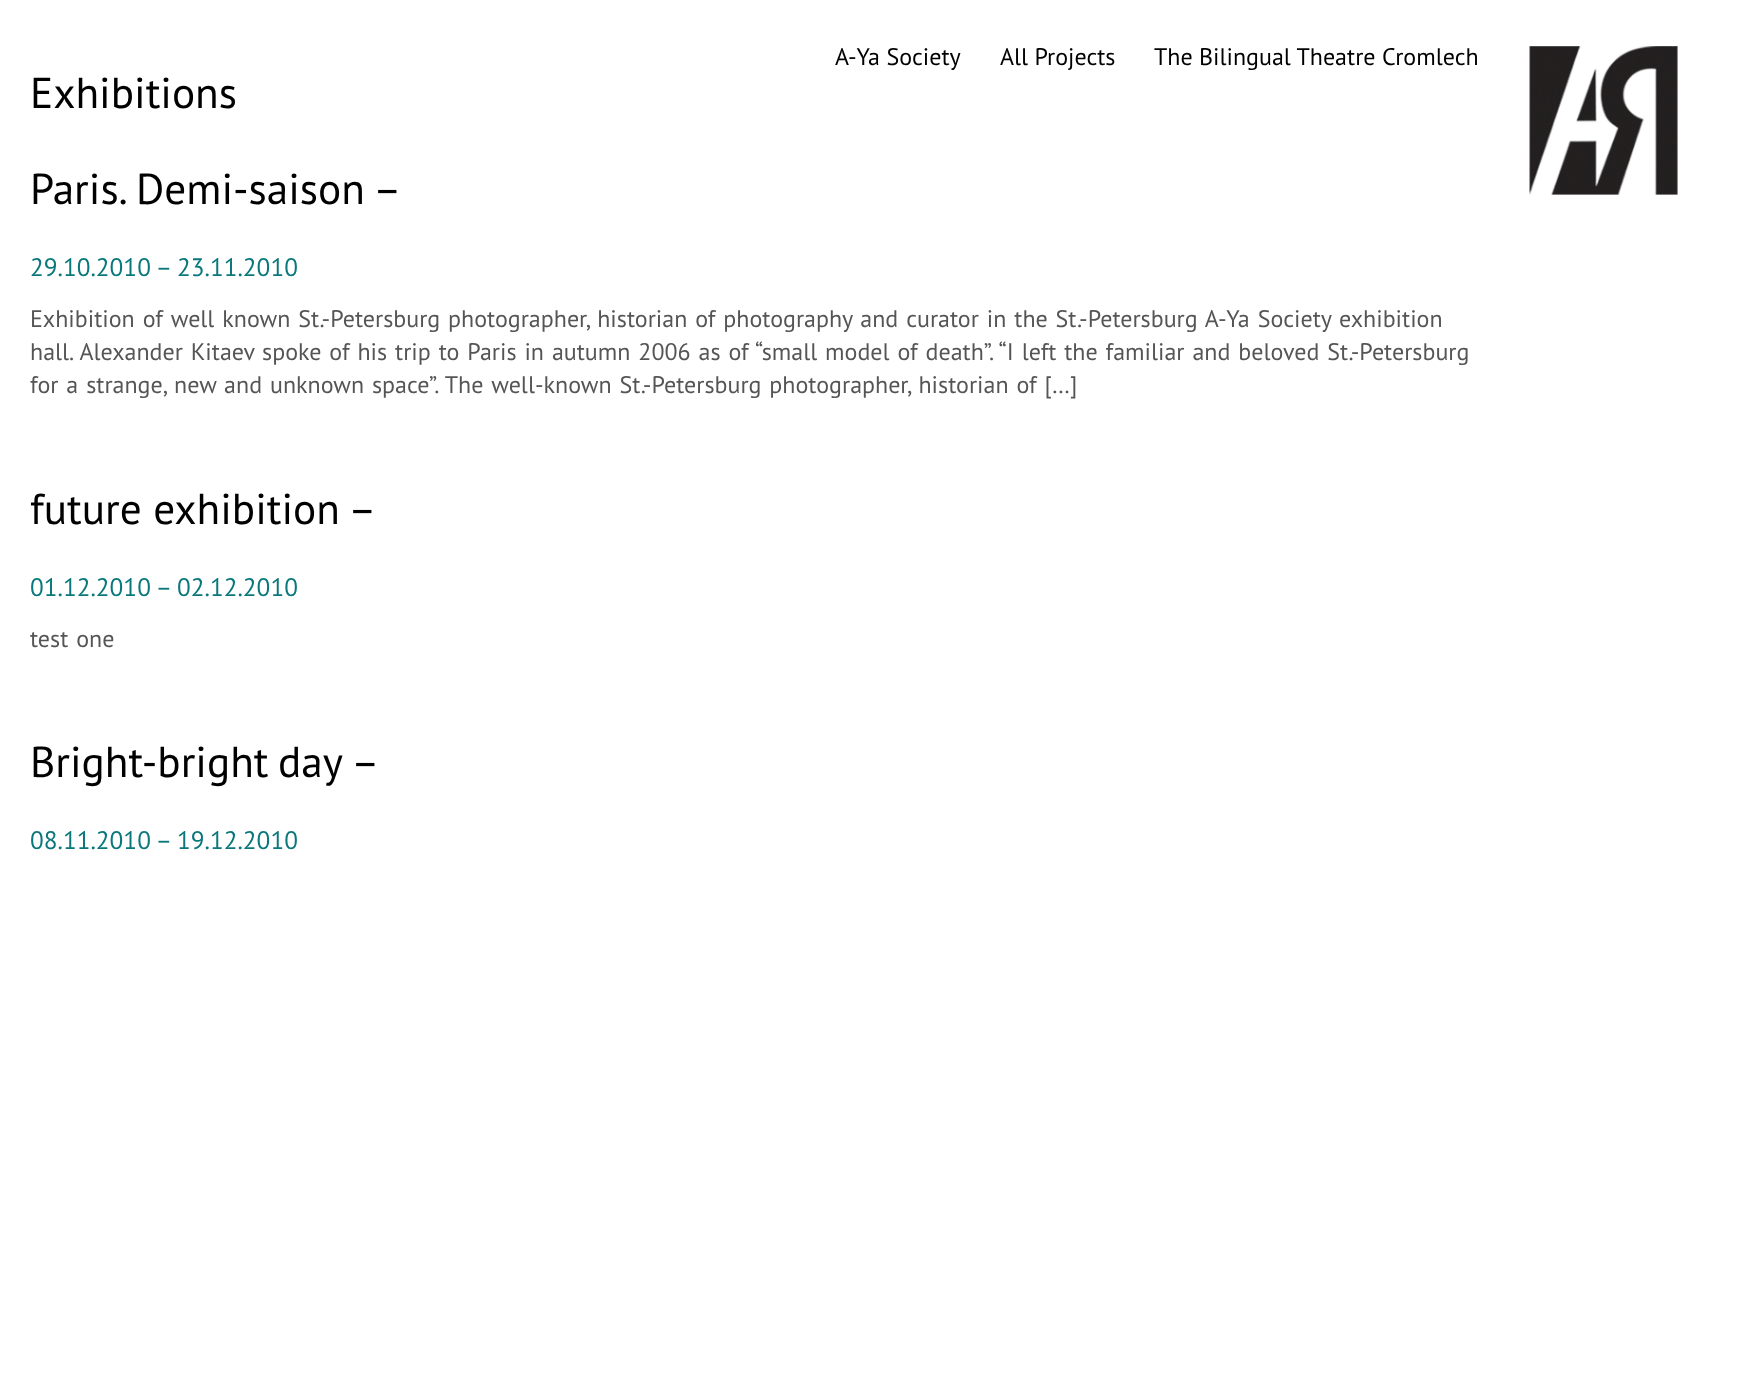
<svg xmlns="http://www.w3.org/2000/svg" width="1753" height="1388">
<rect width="100%" height="100%" fill="#fff"/>
<text x="835" y="65" style="font-family:PT Sans;font-size:24px;fill:#000">A-Ya Society</text>
<text x="1000" y="65" style="font-family:PT Sans;font-size:24px;fill:#000">All Projects</text>
<text x="1154" y="65" style="font-family:PT Sans;font-size:24px;fill:#000">The Bilingual Theatre Cromlech</text>
<text x="30" y="108" style="font-family:PT Sans;font-size:43.25px;fill:#000">Exhibitions</text>
<text x="30" y="204" style="font-family:PT Sans;font-size:43.25px;fill:#000">Paris. Demi-saison</text>
<text x="373" y="204" style="font-family:PT Sans;font-size:43.25px;fill:#000">–</text>
<text x="30" y="276" style="font-family:PT Sans;font-size:25.25px;fill:#0a777b">29.10.2010 – 23.11.2010</text>
<text x="30" y="327" word-spacing="1.5" style="font-family:PT Sans;font-size:24px;fill:#555">Exhibition of well known St.-Petersburg photographer, historian of photography and curator in the St.-Petersburg A-Ya Society exhibition</text>
<text x="30" y="360" word-spacing="1.5" style="font-family:PT Sans;font-size:24px;fill:#555">hall. Alexander Kitaev spoke of his trip to Paris in autumn 2006 as of “small model of death”. “I left the familiar and beloved St.-Petersburg</text>
<text x="30" y="393" word-spacing="1.5" style="font-family:PT Sans;font-size:24px;fill:#555">for a strange, new and unknown space”. The well-known St.-Petersburg photographer, historian of […]</text>
<text x="30" y="524" style="font-family:PT Sans;font-size:43.25px;fill:#000">future exhibition</text>
<text x="348" y="524" style="font-family:PT Sans;font-size:43.25px;fill:#000">–</text>
<text x="30" y="596" style="font-family:PT Sans;font-size:25.25px;fill:#0a777b">01.12.2010 – 02.12.2010</text>
<text x="30" y="647" word-spacing="1.5" style="font-family:PT Sans;font-size:24px;fill:#555">test one</text>
<text x="30" y="777" word-spacing="-2" style="font-family:PT Sans;font-size:43.25px;fill:#000">Bright-bright day</text>
<text x="351" y="777" style="font-family:PT Sans;font-size:43.25px;fill:#000">–</text>
<text x="30" y="849" style="font-family:PT Sans;font-size:25.25px;fill:#0a777b">08.11.2010 – 19.12.2010</text>
<image x="1529" y="46" width="149" height="149" href="media/1.png"/>
</svg>
